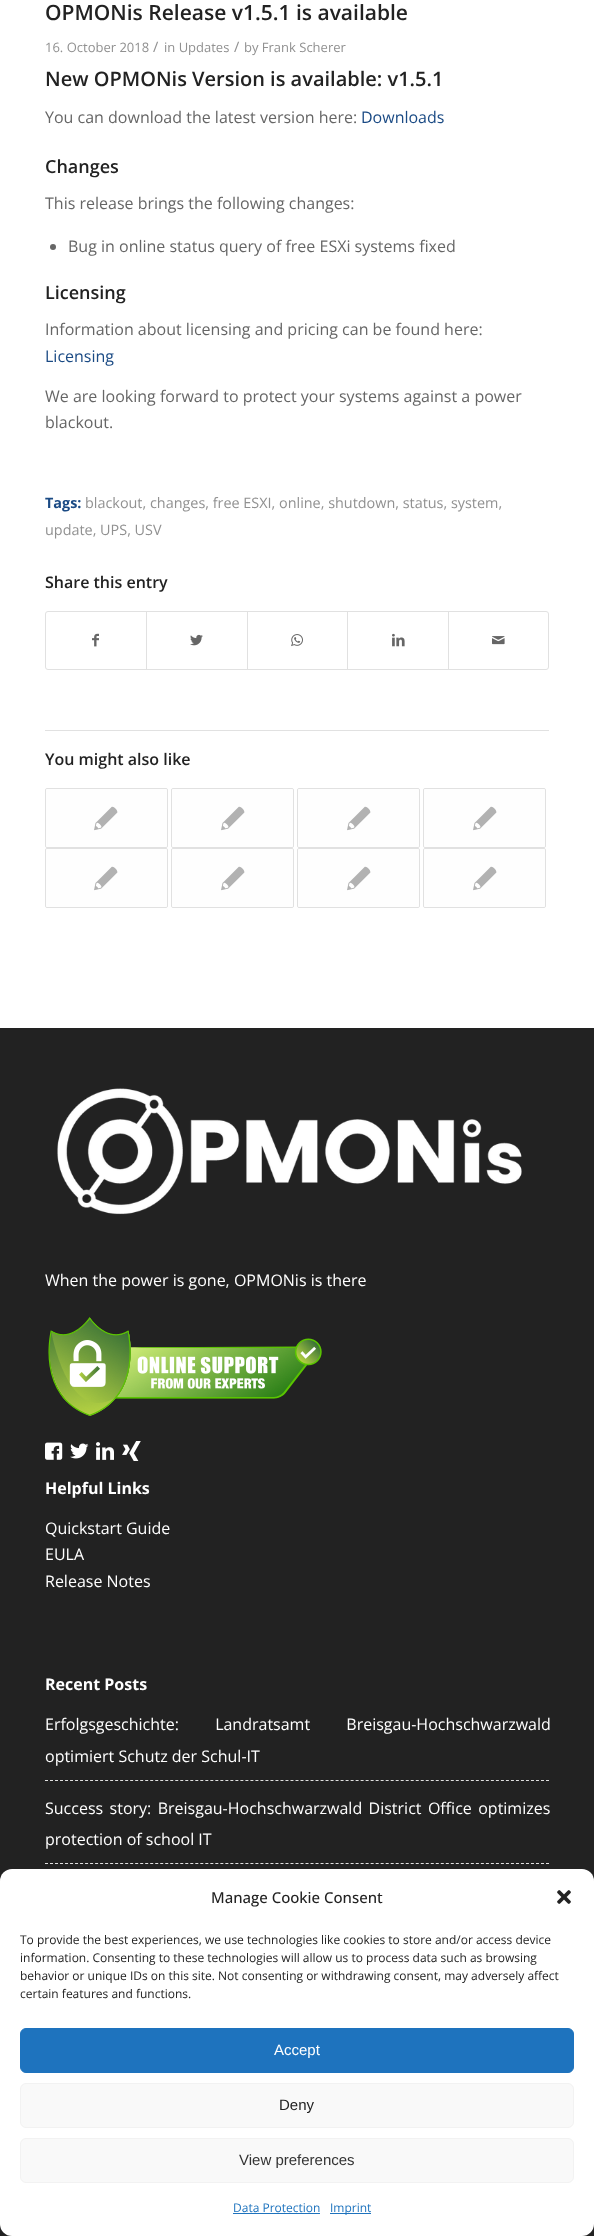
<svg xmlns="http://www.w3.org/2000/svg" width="594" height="2236">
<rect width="100%" height="100%" fill="#fff"/>
<text x="45" y="20" style="font-family:Open Sans;font-size:21px;font-weight:600;fill:#222">OPMONis Release v1.5.1 is available</text>
<text x="45" y="52" style="font-family:Open Sans;font-size:13px;fill:#919191">16. October 2018</text>
<text x="153" y="52" style="font-family:Open Sans;font-size:14.4px;fill:#919191">/</text>
<text x="164" y="52" style="font-family:Open Sans;font-size:13px;fill:#919191">in Updates</text>
<text x="234" y="52" style="font-family:Open Sans;font-size:14.4px;fill:#919191">/</text>
<text x="244" y="52" style="font-family:Open Sans;font-size:13px;fill:#919191">by Frank Scherer</text>
<text x="45" y="86" style="font-family:Open Sans;font-size:20px;font-weight:600;fill:#222">New OPMONis Version is available: v1.5.1</text>
<text x="45" y="123" style="font-family:Open Sans;font-size:16px;fill:#666">You can download the latest version here:</text>
<text x="361" y="123" style="font-family:Open Sans;font-size:16px;fill:#1a4a84">Downloads</text>
<text x="45" y="173" style="font-family:Open Sans;font-size:18px;font-weight:600;fill:#222">Changes</text>
<text x="45" y="209" style="font-family:Open Sans;font-size:16px;fill:#666">This release brings the following changes:</text>
<circle cx="53" cy="247" r="3" fill="#666"/>
<text x="68" y="252" style="font-family:Open Sans;font-size:16px;fill:#666">Bug in online status query of free ESXi systems fixed</text>
<text x="45" y="299" style="font-family:Open Sans;font-size:18px;font-weight:600;fill:#222">Licensing</text>
<text x="45" y="335" style="font-family:Open Sans;font-size:16px;fill:#666">Information about licensing and pricing can be found here:</text>
<text x="45" y="362" style="font-family:Open Sans;font-size:16px;fill:#1a4a84">Licensing</text>
<text x="45" y="402" style="font-family:Open Sans;font-size:16px;fill:#666">We are looking forward to protect your systems against a power</text>
<text x="45" y="428" style="font-family:Open Sans;font-size:16px;fill:#666">blackout.</text>
<text x="45" y="508" style="font-family:Open Sans;font-size:14.4px;font-weight:bold;fill:#1a4a84">Tags:</text>
<text x="85" y="508" style="font-family:Open Sans;font-size:14.4px;fill:#919191">blackout, changes, free ESXI, online, shutdown, status, system,</text>
<text x="45" y="535" style="font-family:Open Sans;font-size:14.4px;fill:#919191">update, UPS, USV</text>
<text x="45" y="588" style="font-family:Open Sans;font-size:16px;font-weight:600;fill:#222">Share this entry</text>
<rect x="45.5" y="611.5" width="503" height="58" rx="2.5" fill="none" stroke="#e1e1e1"/>
<image x="92" y="633" width="7" height="14" href="media/1.png"/>
<rect x="146" y="612" width="1" height="57" fill="#e1e1e1"/>
<image x="190" y="634" width="13" height="12" href="media/2.png"/>
<rect x="247" y="612" width="1" height="57" fill="#e1e1e1"/>
<image x="291" y="634" width="12" height="13" href="media/3.png"/>
<rect x="347" y="612" width="1" height="57" fill="#e1e1e1"/>
<image x="392" y="633" width="13" height="14" href="media/4.png"/>
<rect x="448" y="612" width="1" height="57" fill="#e1e1e1"/>
<image x="492" y="636" width="13" height="9" href="media/5.png"/>
<rect x="45" y="730" width="504" height="1" fill="#e1e1e1"/>
<text x="45" y="765" style="font-family:Open Sans;font-size:16px;font-weight:600;fill:#222">You might also like</text>
<rect x="45.5" y="788.5" width="122" height="59" rx="1.5" fill="#fcfcfc" stroke="#e1e1e1"/>
<rect x="46" y="789" width="121" height="58" fill="#ffffff80"/>
<image x="94" y="806" width="24" height="25" href="media/6.png"/>
<rect x="171.5" y="788.5" width="122" height="59" rx="1.5" fill="#fcfcfc" stroke="#e1e1e1"/>
<rect x="172" y="789" width="121" height="58" fill="#ffffff80"/>
<image x="221" y="806" width="24" height="25" href="media/6.png"/>
<rect x="297.5" y="788.5" width="122" height="59" rx="1.5" fill="#fcfcfc" stroke="#e1e1e1"/>
<rect x="298" y="789" width="121" height="58" fill="#ffffff80"/>
<image x="347" y="806" width="24" height="25" href="media/6.png"/>
<rect x="423.5" y="788.5" width="122" height="59" rx="1.5" fill="#fcfcfc" stroke="#e1e1e1"/>
<rect x="424" y="789" width="121" height="58" fill="#ffffff80"/>
<image x="473" y="806" width="24" height="25" href="media/6.png"/>
<rect x="45.5" y="848.5" width="122" height="59" rx="1.5" fill="#fcfcfc" stroke="#e1e1e1"/>
<rect x="46" y="849" width="121" height="58" fill="#ffffff80"/>
<image x="94" y="866" width="24" height="25" href="media/6.png"/>
<rect x="171.5" y="848.5" width="122" height="59" rx="1.5" fill="#fcfcfc" stroke="#e1e1e1"/>
<rect x="172" y="849" width="121" height="58" fill="#ffffff80"/>
<image x="221" y="866" width="24" height="25" href="media/6.png"/>
<rect x="297.5" y="848.5" width="122" height="59" rx="1.5" fill="#fcfcfc" stroke="#e1e1e1"/>
<rect x="298" y="849" width="121" height="58" fill="#ffffff80"/>
<image x="347" y="866" width="24" height="25" href="media/6.png"/>
<rect x="423.5" y="848.5" width="122" height="59" rx="1.5" fill="#fcfcfc" stroke="#e1e1e1"/>
<rect x="424" y="849" width="121" height="58" fill="#ffffff80"/>
<image x="473" y="866" width="24" height="25" href="media/6.png"/>
<rect y="1028" width="594" height="1208" fill="#222"/>
<image x="57" y="1088" width="465" height="127" href="media/7.png"/>
<text x="45" y="1286" style="font-family:Open Sans;font-size:16px;fill:#fff">When the power is gone, OPMONis is there</text>
<image x="48" y="1317" width="274" height="99" href="media/8.png"/>
<image x="45" y="1442" width="18" height="18" href="media/9.png"/>
<image x="70" y="1443" width="19" height="16" href="media/10.png"/>
<image x="96" y="1442" width="18" height="18" href="media/11.png"/>
<image x="122" y="1441" width="19" height="20" href="media/12.png"/>
<text x="45" y="1494" style="font-family:Open Sans;font-size:16px;font-weight:bold;fill:#fff">Helpful Links</text>
<text x="45" y="1534" style="font-family:Open Sans;font-size:16px;fill:#fff">Quickstart Guide</text>
<text x="45" y="1560" style="font-family:Open Sans;font-size:16px;fill:#fff">EULA</text>
<text x="45" y="1587" style="font-family:Open Sans;font-size:16px;fill:#fff">Release Notes</text>
<text x="45" y="1690" style="font-family:Open Sans;font-size:16px;font-weight:bold;fill:#fff">Recent Posts</text>
<path d="M45 1780.5h504" fill="none" stroke="#e1e1e1" stroke-dasharray="3 2.01"/>
<text x="45" y="1730" word-spacing="32" style="font-family:Open Sans;font-size:16px;fill:#fff">Erfolgsgeschichte: Landratsamt Breisgau-Hochschwarzwald</text>
<text x="45" y="1762" style="font-family:Open Sans;font-size:16px;fill:#fff">optimiert Schutz der Schul-IT</text>
<path d="M45 1863.5h504" fill="none" stroke="#e1e1e1" stroke-dasharray="3 2.01"/>
<text x="45" y="1814" word-spacing="2.25" style="font-family:Open Sans;font-size:16px;fill:#fff">Success story: Breisgau-Hochschwarzwald District Office optimizes</text>
<text x="45" y="1845" style="font-family:Open Sans;font-size:16px;fill:#fff">protection of school IT</text>
<rect y="1869" width="594" height="367" rx="12" fill="#fff"/>
<text x="211" y="1903" style="font-family:Open Sans;font-size:15px;font-weight:500;fill:#222">Manage Cookie Consent</text>
<image x="557" y="1890" width="14" height="14" href="media/13.png"/>
<text x="20" y="1944" style="font-family:Open Sans;font-size:12px;fill:#222">To provide the best experiences, we use technologies like cookies to store and/or access device</text>
<text x="20" y="1962" style="font-family:Open Sans;font-size:12px;fill:#222">information. Consenting to these technologies will allow us to process data such as browsing</text>
<text x="20" y="1980" style="font-family:Open Sans;font-size:12px;fill:#222">behavior or unique IDs on this site. Not consenting or withdrawing consent, may adversely affect</text>
<text x="20" y="1998" style="font-family:Open Sans;font-size:12px;fill:#222">certain features and functions.</text>
<rect x="20.5" y="2028.5" width="553" height="44" rx="5.5" fill="#1e73be" stroke="#1e73be"/>
<text x="274" y="2055" style="font-family:Liberation Sans;font-size:15px;fill:#fff">Accept</text>
<rect x="20.5" y="2083.5" width="553" height="44" rx="5.5" fill="#f9f9f9" stroke="#f2f2f2"/>
<text x="279" y="2110" style="font-family:Liberation Sans;font-size:15px;fill:#222">Deny</text>
<rect x="20.5" y="2138.5" width="553" height="44" rx="5.5" fill="#f9f9f9" stroke="#f2f2f2"/>
<text x="239" y="2165" style="font-family:Liberation Sans;font-size:15px;fill:#333">View preferences</text>
<text x="233" y="2212" style="font-family:Open Sans;font-size:12px;fill:#1e73be">Data Protection</text>
<rect x="233" y="2213" width="87" height="1" fill="#1e73be"/>
<rect x="330" y="2213" width="41" height="1" fill="#1e73be"/>
<text x="330" y="2212" style="font-family:Open Sans;font-size:12px;fill:#1e73be">Imprint</text>
</svg>
